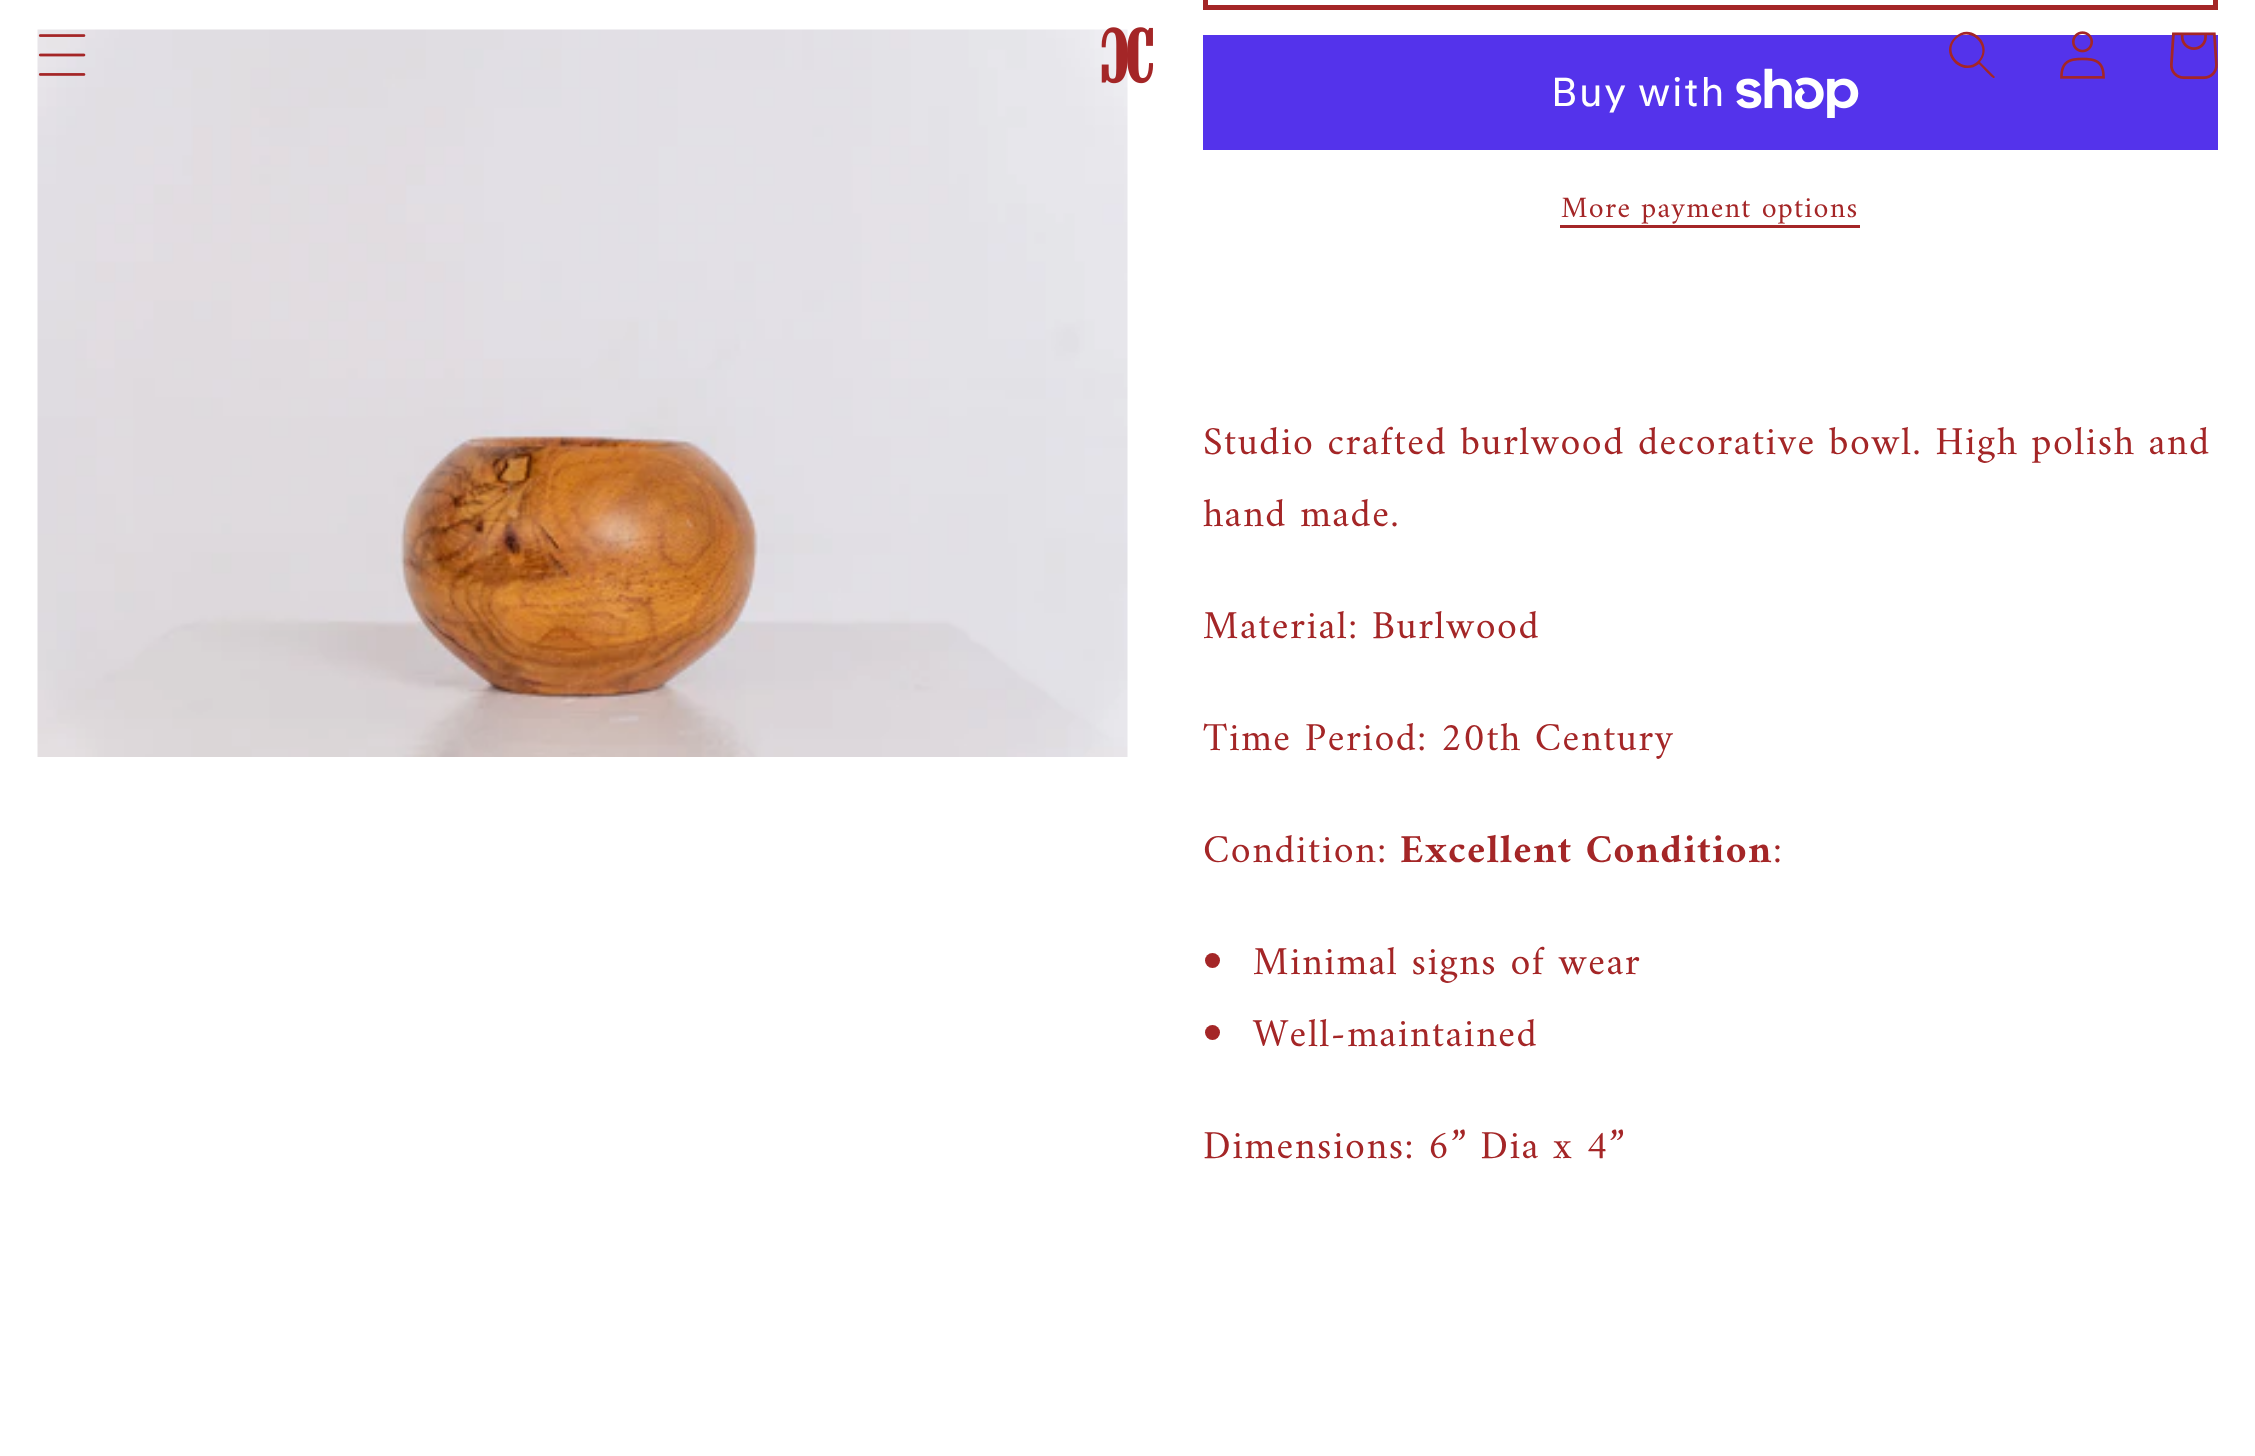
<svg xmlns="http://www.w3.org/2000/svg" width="2255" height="1456">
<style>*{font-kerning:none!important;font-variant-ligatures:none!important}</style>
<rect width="100%" height="100%" fill="#fff"/>
<image x="37" y="29" width="1091" height="728" href="media/5.png"/>
<image x="38" y="34" width="48" height="42" href="media/1.png"/>
<image x="1101" y="27" width="53" height="57" href="media/2.png"/>
<rect x="1203" y="35" width="1015" height="115" fill="#5433eb"/>
<path d="M1978 61c-14 14-36-8-22-22c14-14 36 8 22 22zm1 3c-18 14-41-11-24-27c16-16 40 8 25 25l15 15l-1 1c-1 1-13-12-15-14z" fill="#a42627" fill-rule="evenodd"/>
<image x="2060" y="31" width="45" height="48" href="media/3.png"/>
<image x="2170" y="32" width="48" height="48" href="media/4.png"/>
<rect x="1205.5" y="-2.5" width="1010" height="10" fill="none" stroke="#a42627" stroke-width="5"/>
<text x="1551" y="106" style="font-family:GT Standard;font-size:40px;letter-spacing:1.5px;fill:#fff">Buy with</text>
<image x="1736" y="68" width="123" height="50" href="media/6.png"/>
<text x="1561" y="217" style="font-family:Amiri;font-size:30px;letter-spacing:1.25px;fill:#a42627">More payment options</text>
<rect x="1560" y="225" width="300" height="3" fill="#a42627"/>
<text x="1203" y="454" style="font-family:Amiri;font-size:40px;letter-spacing:1.5px;fill:#a42627">Studio crafted burlwood decorative bowl. High polish and</text>
<text x="1203" y="526" style="font-family:Amiri;font-size:40px;letter-spacing:1.5px;fill:#a42627">hand made.</text>
<text x="1203" y="638" style="font-family:Amiri;font-size:40px;letter-spacing:1.5px;fill:#a42627">Material: Burlwood</text>
<text x="1203" y="750" style="font-family:Amiri;font-size:40px;letter-spacing:1.5px;fill:#a42627">Time Period: 20th Century</text>
<text x="1203" y="862" style="font-family:Amiri;font-size:40px;letter-spacing:1.5px;fill:#a42627">Condition:</text>
<text x="1400" y="862" style="font-family:Amiri;font-size:40px;font-weight:bold;letter-spacing:1.5px;fill:#a42627">Excellent Condition</text>
<text x="1773" y="862" style="font-family:Amiri;font-size:40px;letter-spacing:1.5px;fill:#a42627">:</text>
<circle cx="1212.5" cy="960.5" r="7.5" fill="#a42627"/>
<text x="1253" y="974" style="font-family:Amiri;font-size:40px;letter-spacing:1.5px;fill:#a42627">Minimal signs of wear</text>
<circle cx="1212.5" cy="1032.5" r="7.5" fill="#a42627"/>
<text x="1253" y="1046" style="font-family:Amiri;font-size:40px;letter-spacing:1.5px;fill:#a42627">Well-maintained</text>
<text x="1203" y="1158" style="font-family:Amiri;font-size:40px;letter-spacing:1.5px;fill:#a42627">Dimensions: 6” Dia x 4”</text>
</svg>
